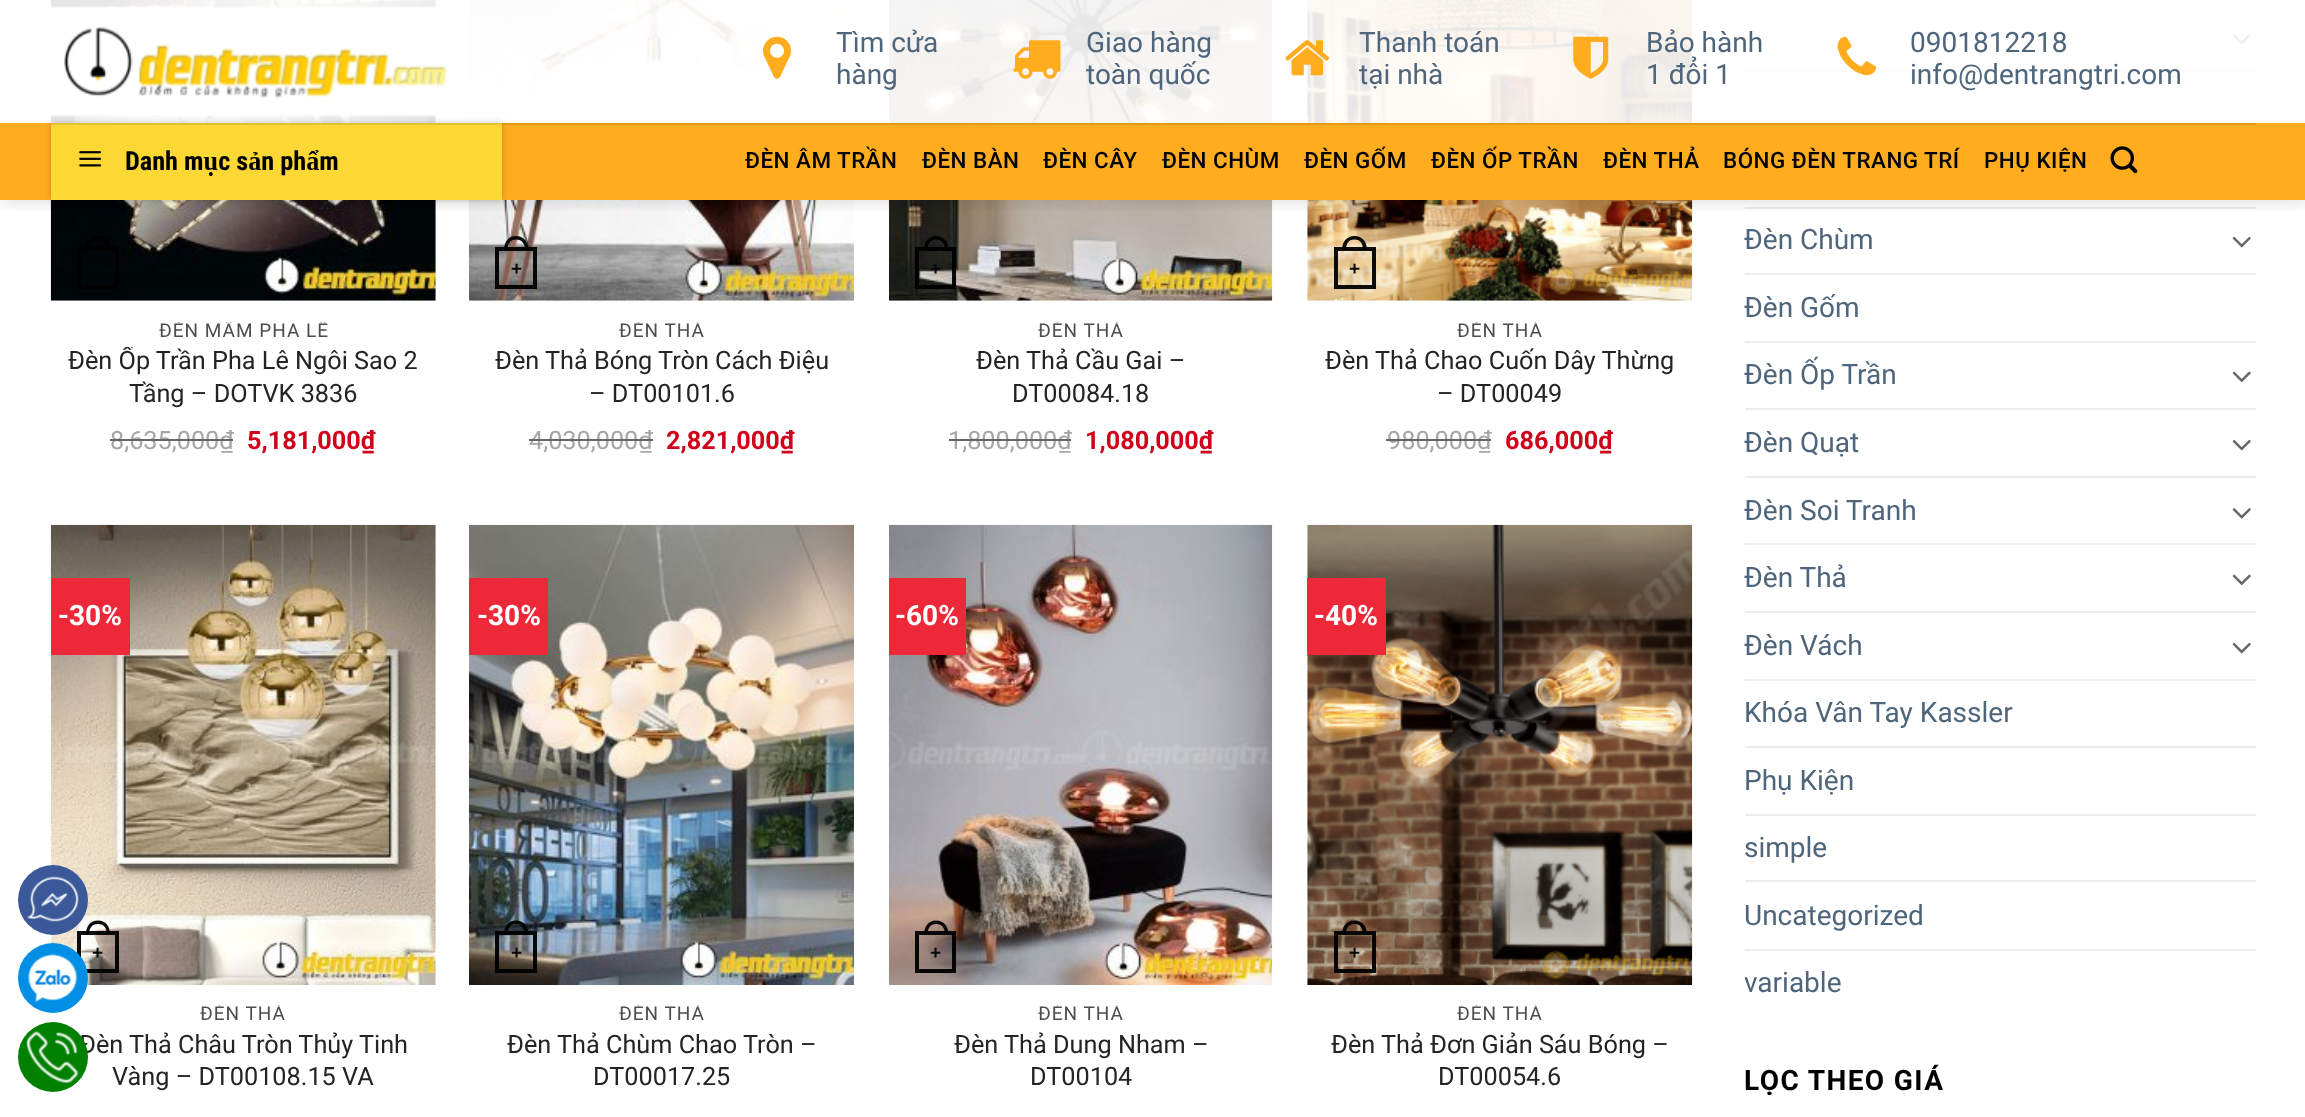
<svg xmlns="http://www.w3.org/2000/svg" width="2305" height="1117">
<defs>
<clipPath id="clip1"><rect x="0" y="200" width="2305" height="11"/></clipPath>
<clipPath id="clip2"><rect x="68" y="322" width="350" height="21"/></clipPath>
<clipPath id="clip3"><rect x="68" y="347" width="350" height="64"/></clipPath>
<clipPath id="clip4"><rect x="487" y="322" width="350" height="21"/></clipPath>
<clipPath id="clip5"><rect x="907" y="322" width="348" height="21"/></clipPath>
<clipPath id="clip6"><rect x="1325" y="322" width="350" height="21"/></clipPath>
<clipPath id="clip7"><rect x="68" y="1005" width="350" height="22"/></clipPath>
<clipPath id="clip8"><rect x="487" y="1005" width="350" height="22"/></clipPath>
<clipPath id="clip9"><rect x="907" y="1005" width="348" height="22"/></clipPath>
<clipPath id="clip10"><rect x="1325" y="1005" width="350" height="22"/></clipPath>
</defs>
<rect width="100%" height="100%" fill="#fff"/>
<image x="50" y="524" width="386" height="461" href="media/16.png"/>
<rect x="79" y="933" width="38" height="38" fill="none" stroke="#000000f2" stroke-width="4"/>
<path d="M98 920.5c8.5 0 12 6.5 12 14h-24c0-7.5 3.5-14 12-14zm0 3.5c6.5 0 9 5 9 10.5h-18c0-5.5 2.5-10.5 9-10.5z" fill="#000000f2" fill-rule="evenodd"/>
<circle cx="53" cy="900" r="35" fill="#3b5998"/>
<image x="27" y="876" width="52" height="46" href="media/1.png"/>
<circle cx="53" cy="978" r="35" fill="#008fe5"/>
<image x="27" y="954" width="51" height="48" href="media/2.png"/>
<text x="79" y="1053" style="font-family:Roboto;font-size:25.25px;fill:#242424">Đèn Thả Châu Tròn Thủy Tinh</text>
<circle cx="53" cy="1057" r="35" fill="#008000"/>
<image x="26" y="1031" width="53" height="52" href="media/3.png"/>
<image x="50" y="0" width="386" height="301" href="media/12.png"/>
<image x="469" y="0" width="385" height="301" href="media/13.png"/>
<image x="889" y="0" width="384" height="301" href="media/14.png"/>
<image x="1307" y="0" width="386" height="301" href="media/15.png"/>
<rect x="1745" y="4" width="511" height="2" fill="#ececec"/>
<image x="2232" y="33" width="19" height="12" href="media/20.png"/>
<rect x="1745" y="70" width="511" height="2" fill="#ececec"/>
<rect x="1745" y="207" width="511" height="2" fill="#ececec"/>
<g clip-path="url(#clip1)">
<rect x="2" y="2" width="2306" height="199" fill="#00000026" filter="blur(9px)"/>
</g>
<rect x="50" width="2206" height="123" fill="#ffffffe6"/>
<rect y="123" width="2305" height="77" fill="#ffac1f"/>
<rect x="51" y="123" width="451" height="77" fill="#00000033" filter="blur(3.5px)"/>
<image x="51" y="6" width="397" height="111" href="media/4.png"/>
<image x="763" y="36" width="28" height="43" href="media/5.png"/>
<text x="836" y="52" style="font-family:Roboto;font-size:28px;fill:#4e657b">Tìm cửa</text>
<text x="836" y="84" style="font-family:Roboto;font-size:28px;fill:#4e657b">hàng</text>
<image x="1013" y="40" width="48" height="39" href="media/6.png"/>
<text x="1086" y="52" style="font-family:Roboto;font-size:28px;fill:#4e657b">Giao hàng</text>
<text x="1086" y="84" style="font-family:Roboto;font-size:28px;fill:#4e657b">toàn quốc</text>
<image x="1285" y="40" width="45" height="36" href="media/7.png"/>
<text x="1359" y="52" style="font-family:Roboto;font-size:28px;fill:#4e657b">Thanh toán</text>
<text x="1359" y="84" style="font-family:Roboto;font-size:28px;fill:#4e657b">tại nhà</text>
<image x="1573" y="36" width="36" height="43" href="media/8.png"/>
<text x="1646" y="52" style="font-family:Roboto;font-size:28px;fill:#4e657b">Bảo hành</text>
<text x="1646" y="84" style="font-family:Roboto;font-size:28px;fill:#4e657b">1 đổi 1</text>
<image x="1837" y="36" width="39" height="40" href="media/9.png"/>
<text x="1910" y="52" style="font-family:Roboto;font-size:28px;fill:#4e657b">0901812218</text>
<text x="1910" y="84" style="font-family:Roboto;font-size:28px;fill:#4e657b">info@dentrangtri.com</text>
<rect x="51" y="123" width="451" height="77" fill="#fdd835"/>
<rect x="51" y="123" width="2205" height="2" fill="#0000001a"/>
<image x="79" y="151" width="23" height="16" href="media/10.png"/>
<text x="125" y="170" style="font-family:Roboto Condensed;font-size:26.25px;font-weight:bold;fill:#000">Danh mục sản phẩm</text>
<text x="745" y="168" style="font-family:Roboto;font-size:22.4px;font-weight:500;letter-spacing:0.5px;fill:#000">ĐÈN ÂM TRẦN</text>
<text x="922" y="168" style="font-family:Roboto;font-size:22.4px;font-weight:500;letter-spacing:0.5px;fill:#000">ĐÈN BÀN</text>
<text x="1043" y="168" style="font-family:Roboto;font-size:22.4px;font-weight:500;letter-spacing:0.5px;fill:#000">ĐÈN CÂY</text>
<text x="1162" y="168" style="font-family:Roboto;font-size:22.4px;font-weight:500;letter-spacing:0.5px;fill:#000">ĐÈN CHÙM</text>
<text x="1304" y="168" style="font-family:Roboto;font-size:22.4px;font-weight:500;letter-spacing:0.5px;fill:#000">ĐÈN GỐM</text>
<text x="1431" y="168" style="font-family:Roboto;font-size:22.4px;font-weight:500;letter-spacing:0.5px;fill:#000">ĐÈN ỐP TRẦN</text>
<text x="1603" y="168" style="font-family:Roboto;font-size:22.4px;font-weight:500;letter-spacing:0.5px;fill:#000">ĐÈN THẢ</text>
<text x="1723" y="168" style="font-family:Roboto;font-size:22.4px;font-weight:500;letter-spacing:0.5px;fill:#000">BÓNG ĐÈN TRANG TRÍ</text>
<text x="1984" y="168" style="font-family:Roboto;font-size:22.4px;font-weight:500;letter-spacing:0.5px;fill:#000">PHỤ KIỆN</text>
<image x="2110" y="146" width="28" height="28" href="media/11.png"/>
<rect x="79" y="249" width="38" height="38" fill="none" stroke="#000000f2" stroke-width="4"/>
<path d="M98 236c8.5 0 12 6.5 12 14h-24c0-7.5 3.5-14 12-14zm0 3.5c6.5 0 9 5 9 10.5h-18c0-5.5 2.5-10.5 9-10.5z" fill="#000" fill-rule="evenodd"/>
<g clip-path="url(#clip2)">
<text x="159" y="337" style="font-family:Roboto;font-size:19px;letter-spacing:1px;fill:#4d4d4d">ĐÈN MÂM PHA LÊ</text>
</g>
<g clip-path="url(#clip3)">
<text x="68" y="369" style="font-family:Roboto;font-size:25.25px;fill:#242424">Đèn Ốp Trần Pha Lê Ngôi Sao 2</text>
</g>
<text x="129" y="402" style="font-family:Roboto;font-size:25.25px;fill:#242424">Tầng – DOTVK 3836</text>
<text x="110" y="449" style="font-family:Roboto;font-size:25.25px;fill:#a6a6a6">8,635,000₫</text>
<rect x="110" y="439" width="123" height="2" fill="#666"/>
<text x="247" y="449" style="font-family:Roboto;font-size:25.25px;font-weight:bold;fill:#d0021b">5,181,000₫</text>
<rect x="497" y="249" width="38" height="38" fill="none" stroke="#000000f2" stroke-width="4"/>
<path d="M516 236c8.5 0 12.5 6.5 12.5 14h-24.5c0-7.5 4-14 12-14zm0 3.5c6.5 0 9 5 9 10.5h-17.5c0-5.5 2.5-10.5 8.5-10.5z" fill="#000000f2" fill-rule="evenodd"/>
<text x="511" y="275" style="font-family:Liberation Sans;font-size:19px;font-weight:bold;fill:#070707">+</text>
<g clip-path="url(#clip4)">
<text x="619" y="337" style="font-family:Roboto;font-size:19px;letter-spacing:1px;fill:#4d4d4d">ĐÈN THẢ</text>
</g>
<text x="495" y="369" style="font-family:Roboto;font-size:25.25px;fill:#242424">Đèn Thả Bóng Tròn Cách Điệu</text>
<text x="589" y="402" style="font-family:Roboto;font-size:25.25px;fill:#242424">– DT00101.6</text>
<text x="529" y="449" style="font-family:Roboto;font-size:25.25px;fill:#a6a6a6">4,030,000₫</text>
<rect x="529" y="439" width="124" height="2" fill="#666"/>
<text x="666" y="449" style="font-family:Roboto;font-size:25.25px;font-weight:bold;fill:#d0021b">2,821,000₫</text>
<rect x="917" y="249" width="37" height="38" fill="none" stroke="#000000f2" stroke-width="4"/>
<path d="M936 236c8.5 0 12.5 6.5 12.5 14h-24.5c0-7.5 4-14 12-14zm0 3.5c6.5 0 9 5 9 10.5h-17.5c0-5.5 2.5-10.5 8.5-10.5z" fill="#000000f2" fill-rule="evenodd"/>
<text x="930" y="275" style="font-family:Liberation Sans;font-size:19px;font-weight:bold;fill:#070707">+</text>
<g clip-path="url(#clip5)">
<text x="1038" y="337" style="font-family:Roboto;font-size:19px;letter-spacing:1px;fill:#4d4d4d">ĐÈN THẢ</text>
</g>
<text x="976" y="369" style="font-family:Roboto;font-size:25.25px;fill:#242424">Đèn Thả Cầu Gai –</text>
<text x="1012" y="402" style="font-family:Roboto;font-size:25.25px;fill:#242424">DT00084.18</text>
<text x="948" y="449" style="font-family:Roboto;font-size:25.25px;fill:#a6a6a6">1,800,000₫</text>
<rect x="949" y="439" width="122" height="2" fill="#666"/>
<text x="1085" y="449" style="font-family:Roboto;font-size:25.25px;font-weight:bold;fill:#d0021b">1,080,000₫</text>
<rect x="1336" y="249" width="38" height="38" fill="none" stroke="#000000f2" stroke-width="4"/>
<path d="M1354.5 236c8.5 0 12.5 6.5 12.5 14h-25c0-7.5 4-14 12.5-14zm0 3.5c6.5 0 8.5 5 8.5 10.5h-17c0-5.5 2-10.5 8.5-10.5z" fill="#000000f2" fill-rule="evenodd"/>
<text x="1349" y="275" style="font-family:Liberation Sans;font-size:19px;font-weight:bold;fill:#070707">+</text>
<g clip-path="url(#clip6)">
<text x="1457" y="337" style="font-family:Roboto;font-size:19px;letter-spacing:1px;fill:#4d4d4d">ĐÈN THẢ</text>
</g>
<text x="1325" y="369" style="font-family:Roboto;font-size:25.25px;fill:#242424">Đèn Thả Chao Cuốn Dây Thừng</text>
<text x="1437" y="402" style="font-family:Roboto;font-size:25.25px;fill:#242424">– DT00049</text>
<text x="1387" y="449" style="font-family:Roboto;font-size:25.25px;fill:#a6a6a6">980,000₫</text>
<rect x="1386" y="439" width="105" height="2" fill="#666"/>
<text x="1505" y="449" style="font-family:Roboto;font-size:25.25px;font-weight:bold;fill:#d0021b">686,000₫</text>
<rect x="51" y="578" width="79" height="77" fill="#ed2939"/>
<text x="58" y="625" style="font-family:Roboto;font-size:28px;font-weight:bold;fill:#fff">-30%</text>
<text x="92" y="959" style="font-family:Liberation Sans;font-size:19px;font-weight:bold;fill:#070707">+</text>
<g clip-path="url(#clip7)">
<text x="200" y="1020" style="font-family:Roboto;font-size:19px;letter-spacing:1px;fill:#4d4d4d">ĐÈN THẢ</text>
</g>
<text x="112" y="1085" style="font-family:Roboto;font-size:25.25px;fill:#242424">Vàng – DT00108.15 VA</text>
<image x="469" y="524" width="385" height="461" href="media/17.png"/>
<rect x="469" y="578" width="79" height="77" fill="#ed2939"/>
<text x="477" y="625" style="font-family:Roboto;font-size:28px;font-weight:bold;fill:#fff">-30%</text>
<rect x="497" y="933" width="38" height="38" fill="none" stroke="#000000f2" stroke-width="4"/>
<path d="M516 920.5c8.5 0 12.5 6.5 12.5 14h-24.5c0-7.5 4-14 12-14zm0 3.5c6.5 0 9 5 9 10.5h-17.5c0-5.5 2.5-10.5 8.5-10.5z" fill="#000000f2" fill-rule="evenodd"/>
<text x="511" y="959" style="font-family:Liberation Sans;font-size:19px;font-weight:bold;fill:#070707">+</text>
<g clip-path="url(#clip8)">
<text x="619" y="1020" style="font-family:Roboto;font-size:19px;letter-spacing:1px;fill:#4d4d4d">ĐÈN THẢ</text>
</g>
<text x="507" y="1053" style="font-family:Roboto;font-size:25.25px;fill:#242424">Đèn Thả Chùm Chao Tròn –</text>
<text x="593" y="1085" style="font-family:Roboto;font-size:25.25px;fill:#242424">DT00017.25</text>
<image x="889" y="524" width="384" height="461" href="media/18.png"/>
<rect x="889" y="578" width="77" height="77" fill="#ed2939"/>
<text x="895" y="625" style="font-family:Roboto;font-size:28px;font-weight:bold;fill:#fff">-60%</text>
<rect x="917" y="933" width="37" height="38" fill="none" stroke="#000000f2" stroke-width="4"/>
<path d="M936 920.5c8.5 0 12.5 6.5 12.5 14h-24.5c0-7.5 4-14 12-14zm0 3.5c6.5 0 9 5 9 10.5h-17.5c0-5.5 2.5-10.5 8.5-10.5z" fill="#000000f2" fill-rule="evenodd"/>
<text x="930" y="959" style="font-family:Liberation Sans;font-size:19px;font-weight:bold;fill:#070707">+</text>
<g clip-path="url(#clip9)">
<text x="1038" y="1020" style="font-family:Roboto;font-size:19px;letter-spacing:1px;fill:#4d4d4d">ĐÈN THẢ</text>
</g>
<text x="954" y="1053" style="font-family:Roboto;font-size:25.25px;fill:#242424">Đèn Thả Dung Nham –</text>
<text x="1030" y="1085" style="font-family:Roboto;font-size:25.25px;fill:#242424">DT00104</text>
<image x="1307" y="524" width="386" height="461" href="media/19.png"/>
<rect x="1307" y="578" width="79" height="77" fill="#ed2939"/>
<text x="1314" y="625" style="font-family:Roboto;font-size:28px;font-weight:bold;fill:#fff">-40%</text>
<rect x="1336" y="933" width="38" height="38" fill="none" stroke="#000000f2" stroke-width="4"/>
<path d="M1354.5 920.5c8.5 0 12.5 6.5 12.5 14h-25c0-7.5 4-14 12.5-14zm0 3.5c6.5 0 8.5 5 8.5 10.5h-17c0-5.5 2-10.5 8.5-10.5z" fill="#000000f2" fill-rule="evenodd"/>
<text x="1349" y="959" style="font-family:Liberation Sans;font-size:19px;font-weight:bold;fill:#070707">+</text>
<g clip-path="url(#clip10)">
<text x="1457" y="1020" style="font-family:Roboto;font-size:19px;letter-spacing:1px;fill:#4d4d4d">ĐÈN THẢ</text>
</g>
<text x="1331" y="1053" style="font-family:Roboto;font-size:25.25px;fill:#242424">Đèn Thả Đơn Giản Sáu Bóng –</text>
<text x="1438" y="1085" style="font-family:Roboto;font-size:25.25px;fill:#242424">DT00054.6</text>
<text x="1744" y="249" style="font-family:Roboto;font-size:28px;fill:#4e657b">Đèn Chùm</text>
<image x="2232" y="236" width="19" height="12" href="media/20.png"/>
<rect x="1745" y="273" width="511" height="2" fill="#ececec"/>
<text x="1744" y="317" style="font-family:Roboto;font-size:28px;fill:#4e657b">Đèn Gốm</text>
<rect x="1745" y="341" width="511" height="2" fill="#ececec"/>
<text x="1744" y="384" style="font-family:Roboto;font-size:28px;fill:#4e657b">Đèn Ốp Trần</text>
<image x="2232" y="371" width="19" height="12" href="media/21.png"/>
<rect x="1745" y="408" width="511" height="2" fill="#ececec"/>
<text x="1744" y="452" style="font-family:Roboto;font-size:28px;fill:#4e657b">Đèn Quạt</text>
<image x="2232" y="439" width="19" height="12" href="media/20.png"/>
<rect x="1745" y="476" width="511" height="2" fill="#ececec"/>
<text x="1744" y="520" style="font-family:Roboto;font-size:28px;fill:#4e657b">Đèn Soi Tranh</text>
<image x="2232" y="508" width="19" height="11" href="media/22.png"/>
<rect x="1745" y="543" width="511" height="2" fill="#ececec"/>
<text x="1744" y="587" style="font-family:Roboto;font-size:28px;fill:#4e657b">Đèn Thả</text>
<image x="2232" y="574" width="19" height="12" href="media/21.png"/>
<rect x="1745" y="611" width="511" height="2" fill="#ececec"/>
<text x="1744" y="655" style="font-family:Roboto;font-size:28px;fill:#4e657b">Đèn Vách</text>
<image x="2232" y="642" width="19" height="12" href="media/20.png"/>
<rect x="1745" y="679" width="511" height="2" fill="#ececec"/>
<text x="1744" y="722" style="font-family:Roboto;font-size:28px;fill:#4e657b">Khóa Vân Tay Kassler</text>
<rect x="1745" y="746" width="511" height="2" fill="#ececec"/>
<text x="1744" y="790" style="font-family:Roboto;font-size:28px;fill:#4e657b">Phụ Kiện</text>
<rect x="1745" y="814" width="511" height="2" fill="#ececec"/>
<text x="1744" y="857" style="font-family:Roboto;font-size:28px;fill:#4e657b">simple</text>
<rect x="1745" y="880" width="511" height="2" fill="#ececec"/>
<text x="1744" y="925" style="font-family:Roboto;font-size:28px;fill:#4e657b">Uncategorized</text>
<rect x="1745" y="949" width="511" height="2" fill="#ececec"/>
<text x="1744" y="992" style="font-family:Roboto;font-size:28px;fill:#4e657b">variable</text>
<text x="1744" y="1090" style="font-family:Roboto;font-size:28px;font-weight:bold;letter-spacing:1.4px;fill:#000">LỌC THEO GIÁ</text>
</svg>
